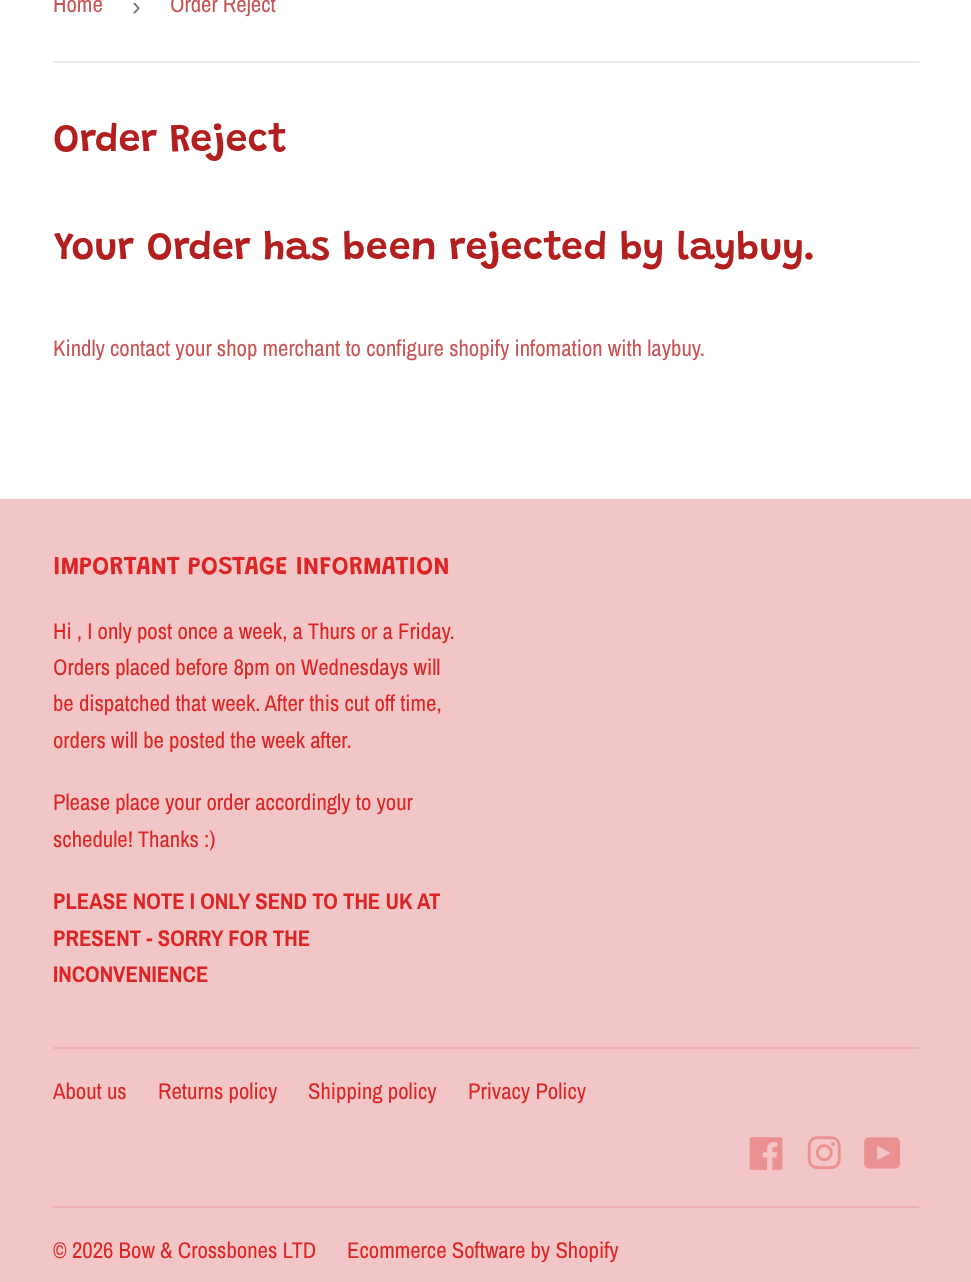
<svg xmlns="http://www.w3.org/2000/svg" width="971" height="1282">
<rect width="100%" height="100%" fill="#fff"/>
<rect x="53" y="61" width="866" height="2" fill="#ececec"/>
<text x="53" y="12" style="font-family:Archivo Narrow;font-size:22.75px;fill:#ca5454">Home</text>
<text x="132" y="15" style="font-family:Liberation Sans;font-size:26px;fill:#767676">›</text>
<text x="170" y="12" style="font-family:Archivo Narrow;font-size:22.75px;fill:#ca5454">Order Reject</text>
<text x="53" y="151" style="font-family:Grandstander;font-size:39.4px;font-weight:600;fill:#b31e1e">Order Reject</text>
<text x="53" y="259" style="font-family:Grandstander;font-size:39.4px;font-weight:600;fill:#b31e1e">Your Order has been rejected by laybuy.</text>
<text x="53" y="356" style="font-family:Archivo Narrow;font-size:22.75px;fill:#ca5454">Kindly contact your shop merchant to configure shopify infomation with laybuy.</text>
<rect y="499" width="971" height="783" fill="#f2c6c6"/>
<text x="53" y="574" style="font-family:Grandstander;font-size:25.75px;font-weight:600;fill:#dd2525">IMPORTANT POSTAGE INFORMATION</text>
<text x="53" y="639" style="font-family:Archivo Narrow;font-size:22.75px;fill:#dd2525">Hi , I only post once a week, a Thurs or a Friday.</text>
<text x="53" y="675" style="font-family:Archivo Narrow;font-size:22.75px;fill:#dd2525">Orders placed before 8pm on Wednesdays will</text>
<text x="53" y="711" style="font-family:Archivo Narrow;font-size:22.75px;fill:#dd2525">be dispatched that week. After this cut off time,</text>
<text x="53" y="748" style="font-family:Archivo Narrow;font-size:22.75px;fill:#dd2525">orders will be posted the week after.</text>
<text x="53" y="810" style="font-family:Archivo Narrow;font-size:22.75px;fill:#dd2525">Please place your order accordingly to your</text>
<text x="53" y="847" style="font-family:Archivo Narrow;font-size:22.75px;fill:#dd2525">schedule! Thanks :)</text>
<text x="53" y="909" style="font-family:Archivo Narrow;font-size:22.75px;font-weight:bold;fill:#dd2525">PLEASE NOTE I ONLY SEND TO THE UK AT</text>
<text x="53" y="946" style="font-family:Archivo Narrow;font-size:22.75px;font-weight:bold;fill:#dd2525">PRESENT - SORRY FOR THE</text>
<text x="53" y="982" style="font-family:Archivo Narrow;font-size:22.75px;font-weight:bold;fill:#dd2525">INCONVENIENCE</text>
<rect x="53" y="1047" width="866" height="2" fill="#edb1b1"/>
<text x="53" y="1099" style="font-family:Archivo Narrow;font-size:22.75px;fill:#dd2525">About us</text>
<text x="158" y="1099" style="font-family:Archivo Narrow;font-size:22.75px;fill:#dd2525">Returns policy</text>
<text x="308" y="1099" style="font-family:Archivo Narrow;font-size:22.75px;fill:#dd2525">Shipping policy</text>
<text x="468" y="1099" style="font-family:Archivo Narrow;font-size:22.75px;fill:#dd2525">Privacy Policy</text>
<image x="749" y="1137" width="34" height="33" href="media/1.png"/>
<image x="807" y="1136" width="34" height="34" href="media/2.png"/>
<image x="864" y="1137" width="37" height="32" href="media/3.png"/>
<rect x="53" y="1206" width="866" height="2" fill="#edb1b1"/>
<text x="53" y="1258" style="font-family:Archivo Narrow;font-size:22.75px;fill:#dd2525">© 2026 Bow &amp; Crossbones LTD</text>
<text x="347" y="1258" style="font-family:Archivo Narrow;font-size:22.75px;fill:#dd2525">Ecommerce Software by Shopify</text>
</svg>
